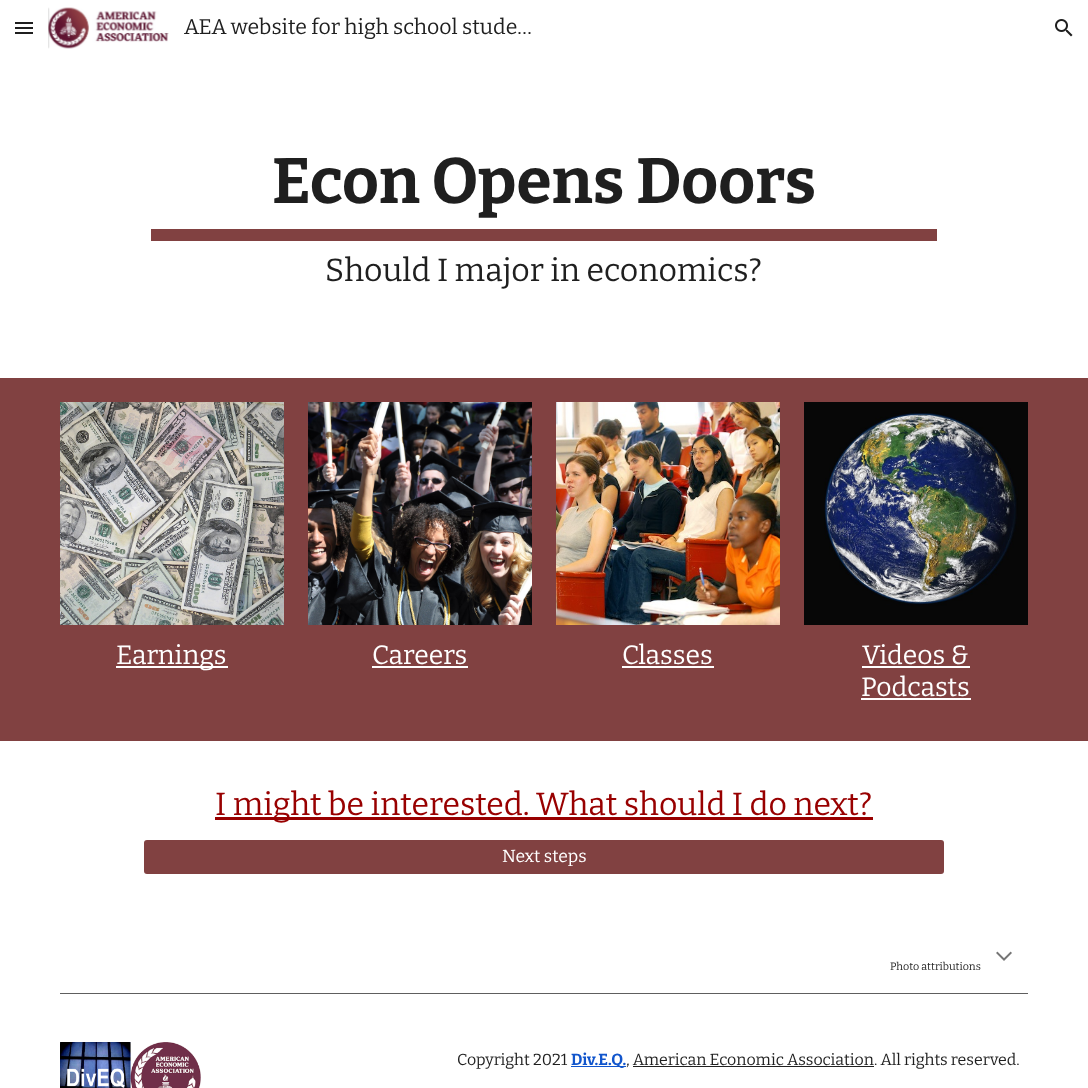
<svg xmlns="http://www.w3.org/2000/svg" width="1088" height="1088">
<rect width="100%" height="100%" fill="#fff"/>
<rect x="15" y="22" width="18" height="2" fill="#1f1f1f"/>
<rect x="15" y="27" width="18" height="2" fill="#1f1f1f"/>
<rect x="15" y="32" width="18" height="2" fill="#1f1f1f"/>
<image x="48" y="7" width="121" height="42" href="media/1.png"/>
<text x="184" y="34" style="font-family:Bitter;font-size:21.3px;fill:#1f1f1f">AEA website for high school stude…</text>
<image x="1055" y="19" width="18" height="18" href="media/2.png"/>
<text x="272" y="203" style="font-family:Bitter;font-size:64px;font-weight:bold;fill:#1f1f1f">Econ Opens Doors</text>
<rect x="151" y="229" width="786" height="12" fill="#814141"/>
<text x="325" y="281" style="font-family:Bitter;font-size:32px;fill:#1f1f1f">Should I major in economics?</text>
<rect y="378" width="1088" height="363" fill="#814141"/>
<image x="60" y="402" width="224" height="223" href="media/3.png"/>
<rect x="116" y="666" width="112" height="2" fill="#fff"/>
<text x="116" y="664" style="font-family:Bitter;font-size:26.5px;fill:#fff">Earnings</text>
<image x="308" y="402" width="224" height="223" href="media/4.png"/>
<text x="372" y="664" style="font-family:Bitter;font-size:26.5px;fill:#fff">Careers</text>
<rect x="372" y="666" width="96" height="2" fill="#fff"/>
<image x="556" y="402" width="224" height="223" href="media/5.png"/>
<text x="622" y="664" style="font-family:Bitter;font-size:26.5px;fill:#fff">Classes</text>
<rect x="622" y="666" width="92" height="2" fill="#fff"/>
<image x="804" y="402" width="224" height="223" href="media/6.png"/>
<text x="862" y="664" style="font-family:Bitter;font-size:26.5px;fill:#fff">Videos &amp;</text>
<rect x="862" y="666" width="108" height="2" fill="#fff"/>
<text x="861" y="696" style="font-family:Bitter;font-size:26.5px;fill:#fff">Podcasts</text>
<rect x="861" y="698" width="110" height="2" fill="#fff"/>
<rect x="215" y="817" width="658" height="3" fill="#980000"/>
<text x="215" y="815" style="font-family:Bitter;font-size:32px;fill:#980000">I might be interested. What should I do next?</text>
<rect x="144" y="840" width="800" height="34" rx="3" fill="#814141"/>
<text x="502" y="862" style="font-family:Bitter;font-size:17.5px;fill:#fff">Next steps</text>
<rect x="60" y="993" width="968" height="1" fill="#5e5e5e"/>
<image x="996" y="951" width="16" height="10" href="media/7.png"/>
<text x="890" y="970" style="font-family:Bitter;font-size:10.75px;fill:#1f1f1f">Photo attributions</text>
<image x="60" y="1042" width="141" height="46" href="media/8.png"/>
<text x="457" y="1065" style="font-family:Bitter;font-size:16px;fill:#1f1f1f">Copyright 2021</text>
<rect x="571" y="1066" width="55" height="1" fill="#15c"/>
<text x="571" y="1065" style="font-family:Bitter;font-size:16px;font-weight:bold;fill:#15c">Div.E.Q.</text>
<text x="626" y="1065" style="font-family:Bitter;font-size:16px;fill:#1f1f1f">, American Economic Association. All rights reserved.</text>
<rect x="633" y="1066" width="241" height="1" fill="#212121"/>
</svg>
